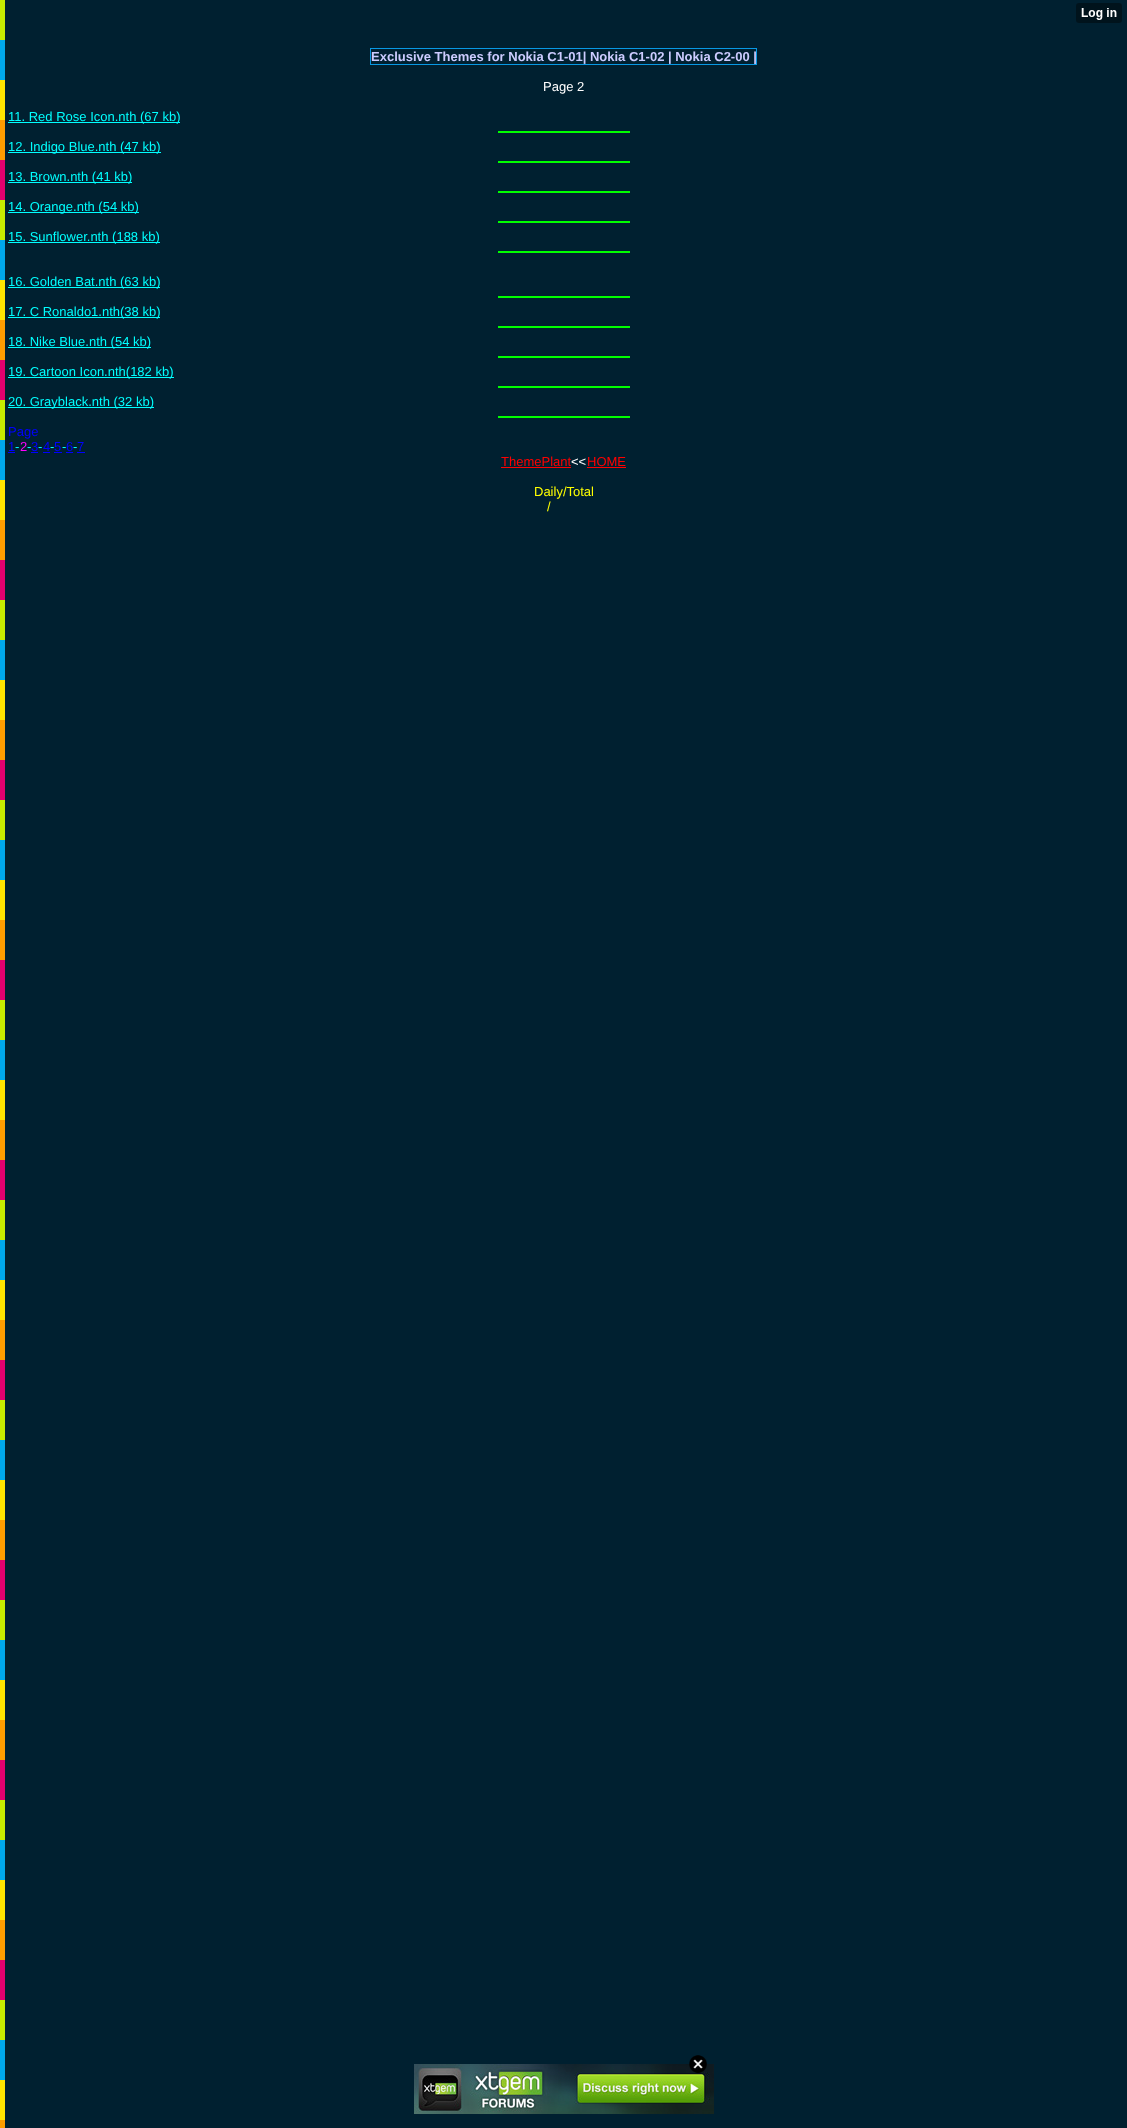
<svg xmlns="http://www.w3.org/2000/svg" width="1127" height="2128">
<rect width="100%" height="100%" fill="#002030"/>
<image x="0" y="0" width="5" height="2128" href="media/1.png"/>
<rect x="370.5" y="48.5" width="386" height="16" fill="none" stroke="#0898e3"/>
<text x="371" y="61" style="font-family:Liberation Sans;font-size:13px;font-weight:bold;fill:#ccf">Exclusive Themes for Nokia C1-01| Nokia C1-02 | Nokia C2-00 |</text>
<text x="543" y="91" style="font-family:Liberation Sans;font-size:13px;fill:#fff">Page 2</text>
<rect x="8" y="122" width="172" height="1" fill="#0ff"/>
<text x="8" y="121" style="font-family:Liberation Sans;font-size:13px;fill:#0ff">11. Red Rose Icon.nth (67 kb)</text>
<rect x="498" y="131" width="132" height="2" fill="#0f0"/>
<rect x="8" y="152" width="153" height="1" fill="#0ff"/>
<text x="8" y="151" style="font-family:Liberation Sans;font-size:13px;fill:#0ff">12. Indigo Blue.nth (47 kb)</text>
<rect x="498" y="161" width="132" height="2" fill="#0f0"/>
<rect x="8" y="182" width="124" height="1" fill="#0ff"/>
<text x="8" y="181" style="font-family:Liberation Sans;font-size:13px;fill:#0ff">13. Brown.nth (41 kb)</text>
<rect x="498" y="191" width="132" height="2" fill="#0f0"/>
<rect x="8" y="212" width="131" height="1" fill="#0ff"/>
<text x="8" y="211" style="font-family:Liberation Sans;font-size:13px;fill:#0ff">14. Orange.nth (54 kb)</text>
<rect x="498" y="221" width="132" height="2" fill="#0f0"/>
<rect x="8" y="242" width="152" height="1" fill="#0ff"/>
<text x="8" y="241" style="font-family:Liberation Sans;font-size:13px;fill:#0ff">15. Sunflower.nth (188 kb)</text>
<rect x="498" y="251" width="132" height="2" fill="#0f0"/>
<rect x="8" y="287" width="152" height="1" fill="#0ff"/>
<text x="8" y="286" style="font-family:Liberation Sans;font-size:13px;fill:#0ff">16. Golden Bat.nth (63 kb)</text>
<rect x="498" y="296" width="132" height="2" fill="#0f0"/>
<rect x="8" y="317" width="152" height="1" fill="#0ff"/>
<text x="8" y="316" style="font-family:Liberation Sans;font-size:13px;fill:#0ff">17. C Ronaldo1.nth(38 kb)</text>
<rect x="498" y="326" width="132" height="2" fill="#0f0"/>
<rect x="8" y="347" width="143" height="1" fill="#0ff"/>
<text x="8" y="346" style="font-family:Liberation Sans;font-size:13px;fill:#0ff">18. Nike Blue.nth (54 kb)</text>
<rect x="498" y="356" width="132" height="2" fill="#0f0"/>
<rect x="8" y="377" width="166" height="1" fill="#0ff"/>
<text x="8" y="376" style="font-family:Liberation Sans;font-size:13px;fill:#0ff">19. Cartoon Icon.nth(182 kb)</text>
<rect x="498" y="386" width="132" height="2" fill="#0f0"/>
<rect x="8" y="407" width="146" height="1" fill="#0ff"/>
<text x="8" y="406" style="font-family:Liberation Sans;font-size:13px;fill:#0ff">20. Grayblack.nth (32 kb)</text>
<rect x="498" y="416" width="132" height="2" fill="#0f0"/>
<text x="8" y="436" style="font-family:Liberation Sans;font-size:13px;fill:#00f">Page</text>
<text x="8" y="451" style="font-family:Liberation Sans;font-size:13px;fill:#00f">1</text>
<rect x="8" y="452" width="7" height="1" fill="#00f"/>
<text x="15" y="451" style="font-family:Liberation Sans;font-size:13px;fill:#0ff">-</text>
<text x="20" y="451" style="font-family:Liberation Sans;font-size:13px;fill:#f0f">2</text>
<text x="27" y="451" style="font-family:Liberation Sans;font-size:13px;fill:#0ff">-</text>
<text x="31" y="451" style="font-family:Liberation Sans;font-size:13px;fill:#00f">3</text>
<rect x="31" y="452" width="7" height="1" fill="#00f"/>
<text x="38" y="451" style="font-family:Liberation Sans;font-size:13px;fill:#0ff">-</text>
<text x="43" y="451" style="font-family:Liberation Sans;font-size:13px;fill:#00f">4</text>
<rect x="43" y="452" width="7" height="1" fill="#00f"/>
<text x="50" y="451" style="font-family:Liberation Sans;font-size:13px;fill:#0ff">-</text>
<text x="54" y="451" style="font-family:Liberation Sans;font-size:13px;fill:#00f">5</text>
<rect x="54" y="452" width="8" height="1" fill="#00f"/>
<text x="62" y="451" style="font-family:Liberation Sans;font-size:13px;fill:#0ff">-</text>
<text x="66" y="451" style="font-family:Liberation Sans;font-size:13px;fill:#00f">6</text>
<rect x="66" y="452" width="7" height="1" fill="#00f"/>
<text x="73" y="451" style="font-family:Liberation Sans;font-size:13px;fill:#0ff">-</text>
<text x="77" y="451" style="font-family:Liberation Sans;font-size:13px;fill:#00f">7</text>
<rect x="77" y="452" width="8" height="1" fill="#00f"/>
<image x="1076" y="3" width="46" height="20" href="media/2.png"/>
<text x="501" y="466" style="font-family:Liberation Sans;font-size:13px;fill:#f00">ThemePlant</text>
<rect x="501" y="467" width="70" height="1" fill="#f00"/>
<text x="571" y="466" style="font-family:Liberation Sans;font-size:13px;fill:#fff">&lt;&lt;</text>
<text x="587" y="466" style="font-family:Liberation Sans;font-size:13px;fill:#f00">HOME</text>
<rect x="587" y="467" width="39" height="1" fill="#f00"/>
<text x="534" y="496" style="font-family:Liberation Sans;font-size:13px;fill:#ff0">Daily/Total</text>
<text x="547" y="511" style="font-family:Liberation Sans;font-size:13px;fill:#ff0">/</text>
<image x="414" y="2064" width="300" height="50" href="media/4.png"/>
<image x="689" y="2055" width="18" height="18" href="media/3.png"/>
</svg>
